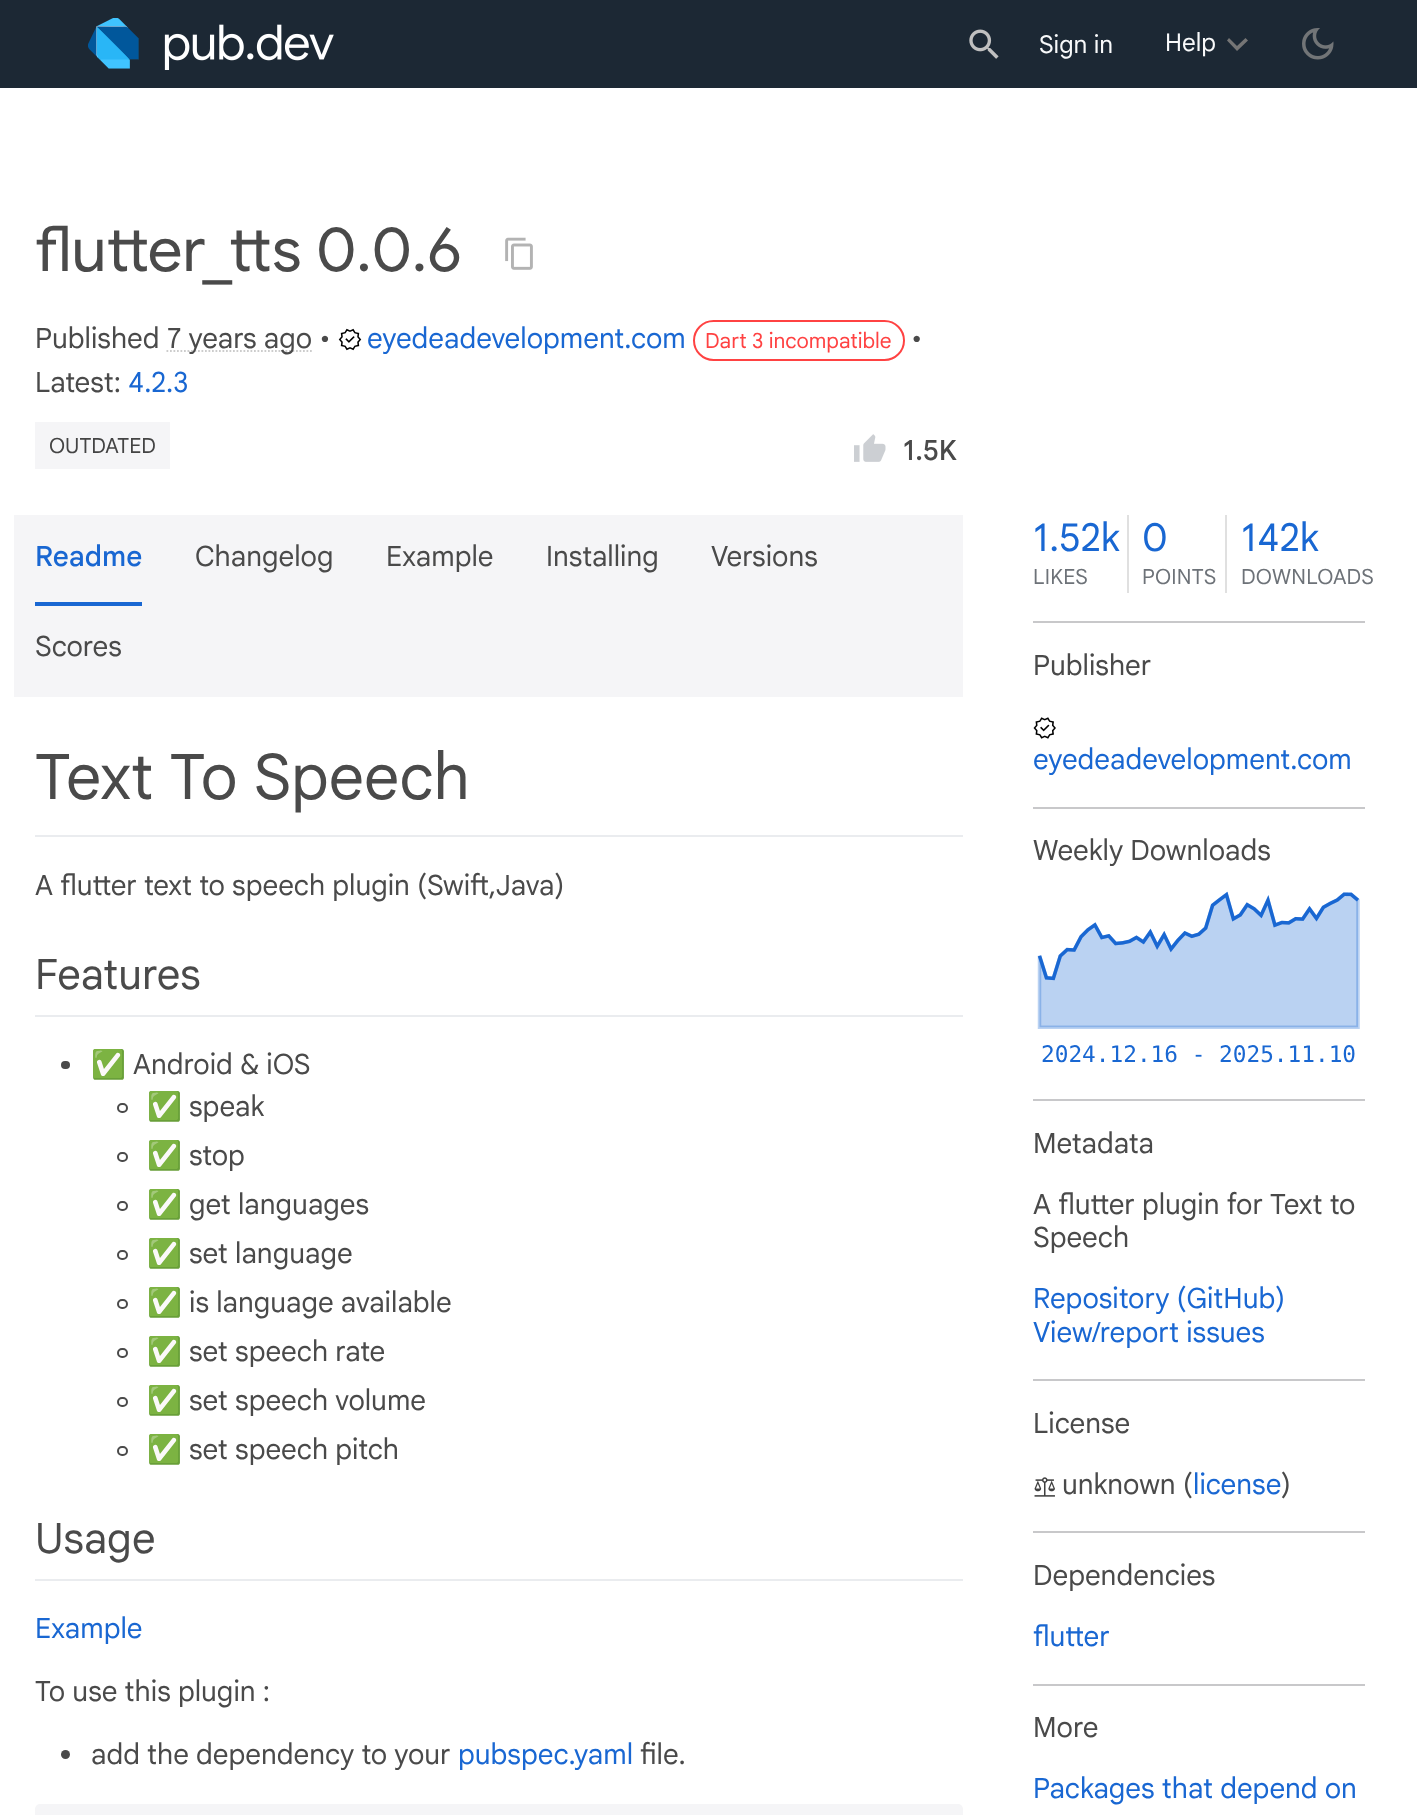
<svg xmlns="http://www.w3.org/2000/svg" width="1417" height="1815">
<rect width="100%" height="100%" fill="#fff"/>
<rect width="1417" height="88" fill="#1c2834"/>
<image x="88" y="18" width="246" height="52" href="media/1.png"/>
<image x="969" y="29" width="30" height="30" href="media/2.png"/>
<text x="1039" y="53" style="font-family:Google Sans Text;font-size:24.5px;fill:#f8f9fa">Sign in</text>
<text x="1165" y="51" style="font-family:Google Sans Text;font-size:24.5px;fill:#f8f9fa">Help</text>
<path d="M1229 38l8 8l8.5-8l2.5 2.5l-11 10.5l-10-10.5z" fill="#757575"/>
<image x="1302" y="28" width="32" height="32" href="media/3.png"/>
<text x="35" y="271" style="font-family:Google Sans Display;font-size:63px;fill:#4a4a4a">flutter_tts 0.0.6</text>
<image x="505" y="237" width="28" height="33" href="media/4.png"/>
<text x="35" y="348" style="font-family:Google Sans Text;font-size:28px;fill:#4a4a4a">Published</text>
<path d="M166.5 351h145.5" fill="none" stroke="#ccc" stroke-width="1.8" stroke-dasharray="1.75 1.75"/>
<text x="167" y="348" style="font-family:Google Sans Text;font-size:28px;fill:#4a4a4a">7 years ago •</text>
<image x="338" y="328" width="24" height="23" href="media/5.png"/>
<text x="367" y="348" style="font-family:Google Sans Text;font-size:28px;fill:#1967d2">eyedeadevelopment.com</text>
<rect x="694" y="321" width="210" height="39" rx="19.5" fill="none" stroke="#ff4242" stroke-width="2"/>
<text x="705" y="348" style="font-family:Google Sans Text;font-size:21px;fill:#ff4242">Dart 3 incompatible</text>
<text x="911" y="348" style="font-family:Google Sans Text;font-size:28px;fill:#4a4a4a">•</text>
<text x="35" y="392" style="font-family:Google Sans Text;font-size:28px;fill:#4a4a4a">Latest:</text>
<text x="128" y="392" style="font-family:Google Sans Text;font-size:28px;fill:#1967d2">4.2.3</text>
<rect x="35" y="422" width="135" height="47" fill="#f5f5f7"/>
<text x="49" y="453" style="font-family:Google Sans Text;font-size:21px;fill:#444">OUTDATED</text>
<image x="854" y="434" width="32" height="28" href="media/6.png"/>
<text x="903" y="460" style="font-family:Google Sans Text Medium;font-size:28px;font-weight:500;fill:#4a4a4a">1.5K</text>
<rect x="14" y="515" width="949" height="182" fill="#f5f5f7"/>
<rect x="35" y="602" width="107" height="4" fill="#1967d2"/>
<text x="35" y="566" style="font-family:Google Sans Text Medium;font-size:28px;font-weight:500;fill:#1967d2">Readme</text>
<text x="195" y="566" style="font-family:Google Sans Text;font-size:28px;fill:#4a4a4a">Changelog</text>
<text x="386" y="566" style="font-family:Google Sans Text;font-size:28px;fill:#4a4a4a">Example</text>
<text x="546" y="566" style="font-family:Google Sans Text;font-size:28px;fill:#4a4a4a">Installing</text>
<text x="711" y="566" style="font-family:Google Sans Text;font-size:28px;fill:#4a4a4a">Versions</text>
<text x="35" y="656" style="font-family:Google Sans Text;font-size:28px;fill:#4a4a4a">Scores</text>
<rect x="35" y="835" width="928" height="2" fill="#eaecef"/>
<text x="35" y="799" style="font-family:Google Sans Text;font-size:63px;fill:#4a4a4a">Text To Speech</text>
<text x="35" y="895" style="font-family:Google Sans Text;font-size:28px;fill:#4a4a4a">A flutter text to speech plugin (Swift,Java)</text>
<rect x="35" y="1015" width="928" height="2" fill="#eaecef"/>
<text x="35" y="989" style="font-family:Google Sans Text;font-size:42px;fill:#4a4a4a">Features</text>
<rect x="61" y="1061" width="9" height="8" rx="4" fill="#4a4a4a"/>
<text x="91" y="1074" style="font-family:Noto Color Emoji;font-size:28px;fill:#4a4a4a">✅</text>
<text x="133" y="1074" style="font-family:Google Sans Text;font-size:28px;fill:#4a4a4a">Android &amp; iOS</text>
<rect x="118" y="1104" width="9" height="8" rx="4" fill="none" stroke="#4a4a4a" stroke-width="2"/>
<text x="147" y="1116" style="font-family:Noto Color Emoji;font-size:28px;fill:#4a4a4a">✅</text>
<text x="189" y="1116" style="font-family:Google Sans Text;font-size:28px;fill:#4a4a4a">speak</text>
<rect x="118" y="1153" width="9" height="8" rx="4" fill="none" stroke="#4a4a4a" stroke-width="2"/>
<text x="147" y="1165" style="font-family:Noto Color Emoji;font-size:28px;fill:#4a4a4a">✅</text>
<text x="189" y="1165" style="font-family:Google Sans Text;font-size:28px;fill:#4a4a4a">stop</text>
<rect x="118" y="1202" width="9" height="8" rx="4" fill="none" stroke="#4a4a4a" stroke-width="2"/>
<text x="147" y="1214" style="font-family:Noto Color Emoji;font-size:28px;fill:#4a4a4a">✅</text>
<text x="189" y="1214" style="font-family:Google Sans Text;font-size:28px;fill:#4a4a4a">get languages</text>
<rect x="118" y="1251" width="9" height="8" rx="4" fill="none" stroke="#4a4a4a" stroke-width="2"/>
<text x="147" y="1263" style="font-family:Noto Color Emoji;font-size:28px;fill:#4a4a4a">✅</text>
<text x="189" y="1263" style="font-family:Google Sans Text;font-size:28px;fill:#4a4a4a">set language</text>
<rect x="118" y="1300" width="9" height="8" rx="4" fill="none" stroke="#4a4a4a" stroke-width="2"/>
<text x="147" y="1312" style="font-family:Noto Color Emoji;font-size:28px;fill:#4a4a4a">✅</text>
<text x="189" y="1312" style="font-family:Google Sans Text;font-size:28px;fill:#4a4a4a">is language available</text>
<rect x="118" y="1349" width="9" height="8" rx="4" fill="none" stroke="#4a4a4a" stroke-width="2"/>
<text x="147" y="1361" style="font-family:Noto Color Emoji;font-size:28px;fill:#4a4a4a">✅</text>
<text x="189" y="1361" style="font-family:Google Sans Text;font-size:28px;fill:#4a4a4a">set speech rate</text>
<rect x="118" y="1398" width="9" height="8" rx="4" fill="none" stroke="#4a4a4a" stroke-width="2"/>
<text x="147" y="1410" style="font-family:Noto Color Emoji;font-size:28px;fill:#4a4a4a">✅</text>
<text x="189" y="1410" style="font-family:Google Sans Text;font-size:28px;fill:#4a4a4a">set speech volume</text>
<rect x="118" y="1447" width="9" height="8" rx="4" fill="none" stroke="#4a4a4a" stroke-width="2"/>
<text x="147" y="1459" style="font-family:Noto Color Emoji;font-size:28px;fill:#4a4a4a">✅</text>
<text x="189" y="1459" style="font-family:Google Sans Text;font-size:28px;fill:#4a4a4a">set speech pitch</text>
<rect x="35" y="1579" width="928" height="2" fill="#eaecef"/>
<text x="35" y="1553" style="font-family:Google Sans Text;font-size:42px;fill:#4a4a4a">Usage</text>
<text x="35" y="1638" style="font-family:Google Sans Text;font-size:28px;fill:#1967d2">Example</text>
<text x="35" y="1701" style="font-family:Google Sans Text;font-size:28px;fill:#4a4a4a">To use this plugin :</text>
<circle cx="65.5" cy="1754.5" r="4.5" fill="#4a4a4a"/>
<text x="91" y="1764" style="font-family:Google Sans Text;font-size:28px;fill:#4a4a4a">add the dependency to your</text>
<text x="458" y="1764" style="font-family:Google Sans Text;font-size:28px;fill:#1967d2">pubspec.yaml</text>
<text x="640" y="1764" style="font-family:Google Sans Text;font-size:28px;fill:#4a4a4a">file.</text>
<rect x="35" y="1804" width="928" height="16" rx="5" fill="#f5f5f7"/>
<rect x="1127" y="515" width="2" height="78" fill="#e0e0e0"/>
<text x="1033" y="551" style="font-family:Google Sans Text;font-size:38.5px;fill:#1967d2">1.52k</text>
<text x="1033" y="584" style="font-family:Google Sans Text;font-size:21px;letter-spacing:0.25px;fill:#6d7278">LIKES</text>
<rect x="1225" y="515" width="2" height="78" fill="#e0e0e0"/>
<text x="1142" y="551" style="font-family:Google Sans Text;font-size:38.5px;fill:#1967d2">0</text>
<text x="1142" y="584" style="font-family:Google Sans Text;font-size:21px;letter-spacing:0.25px;fill:#6d7278">POINTS</text>
<text x="1241" y="551" style="font-family:Google Sans Text;font-size:38.5px;fill:#1967d2">142k</text>
<text x="1241" y="584" style="font-family:Google Sans Text;font-size:21px;letter-spacing:0.25px;fill:#6d7278">DOWNLOADS</text>
<rect x="1033" y="621" width="332" height="2" fill="#c8c8ca"/>
<text x="1033" y="675" style="font-family:Google Sans Text;font-size:28px;fill:#4a4a4a">Publisher</text>
<image x="1033" y="717" width="23" height="22" href="media/7.png"/>
<text x="1033" y="769" style="font-family:Google Sans Text;font-size:28px;fill:#1967d2">eyedeadevelopment.com</text>
<rect x="1033" y="807" width="332" height="2" fill="#c8c8ca"/>
<text x="1033" y="860" style="font-family:Google Sans Text;font-size:28px;fill:#4a4a4a">Weekly Downloads</text>
<image x="1037" y="891" width="323" height="138" href="media/8.png"/>
<text x="1041" y="1062" style="font-family:DejaVu Sans Mono;font-size:22.75px;fill:#1967d2">2024.12.16 - 2025.11.10</text>
<rect x="1033" y="1099" width="332" height="2" fill="#c8c8ca"/>
<text x="1033" y="1153" style="font-family:Google Sans Text;font-size:28px;fill:#4a4a4a">Metadata</text>
<text x="1033" y="1214" style="font-family:Google Sans Text;font-size:28px;fill:#4a4a4a">A flutter plugin for Text to</text>
<text x="1033" y="1247" style="font-family:Google Sans Text;font-size:28px;fill:#4a4a4a">Speech</text>
<text x="1033" y="1308" style="font-family:Google Sans Text;font-size:28px;fill:#1967d2">Repository (GitHub)</text>
<text x="1033" y="1342" style="font-family:Google Sans Text;font-size:28px;fill:#1967d2">View/report issues</text>
<rect x="1033" y="1379" width="332" height="2" fill="#c8c8ca"/>
<text x="1033" y="1433" style="font-family:Google Sans Text;font-size:28px;fill:#4a4a4a">License</text>
<image x="1034" y="1477" width="21" height="20" href="media/9.png"/>
<text x="1062" y="1494" style="font-family:Google Sans Text;font-size:28px;fill:#4a4a4a">unknown (</text>
<text x="1193" y="1494" style="font-family:Google Sans Text;font-size:28px;fill:#1967d2">license</text>
<text x="1281" y="1494" style="font-family:Google Sans Text;font-size:28px;fill:#4a4a4a">)</text>
<rect x="1033" y="1531" width="332" height="2" fill="#c8c8ca"/>
<text x="1033" y="1585" style="font-family:Google Sans Text;font-size:28px;fill:#4a4a4a">Dependencies</text>
<text x="1033" y="1646" style="font-family:Google Sans Text;font-size:28px;fill:#1967d2">flutter</text>
<rect x="1033" y="1684" width="332" height="2" fill="#c8c8ca"/>
<text x="1033" y="1737" style="font-family:Google Sans Text;font-size:28px;fill:#4a4a4a">More</text>
<text x="1033" y="1798" style="font-family:Google Sans Text;font-size:28px;fill:#1967d2">Packages that depend on</text>
</svg>
